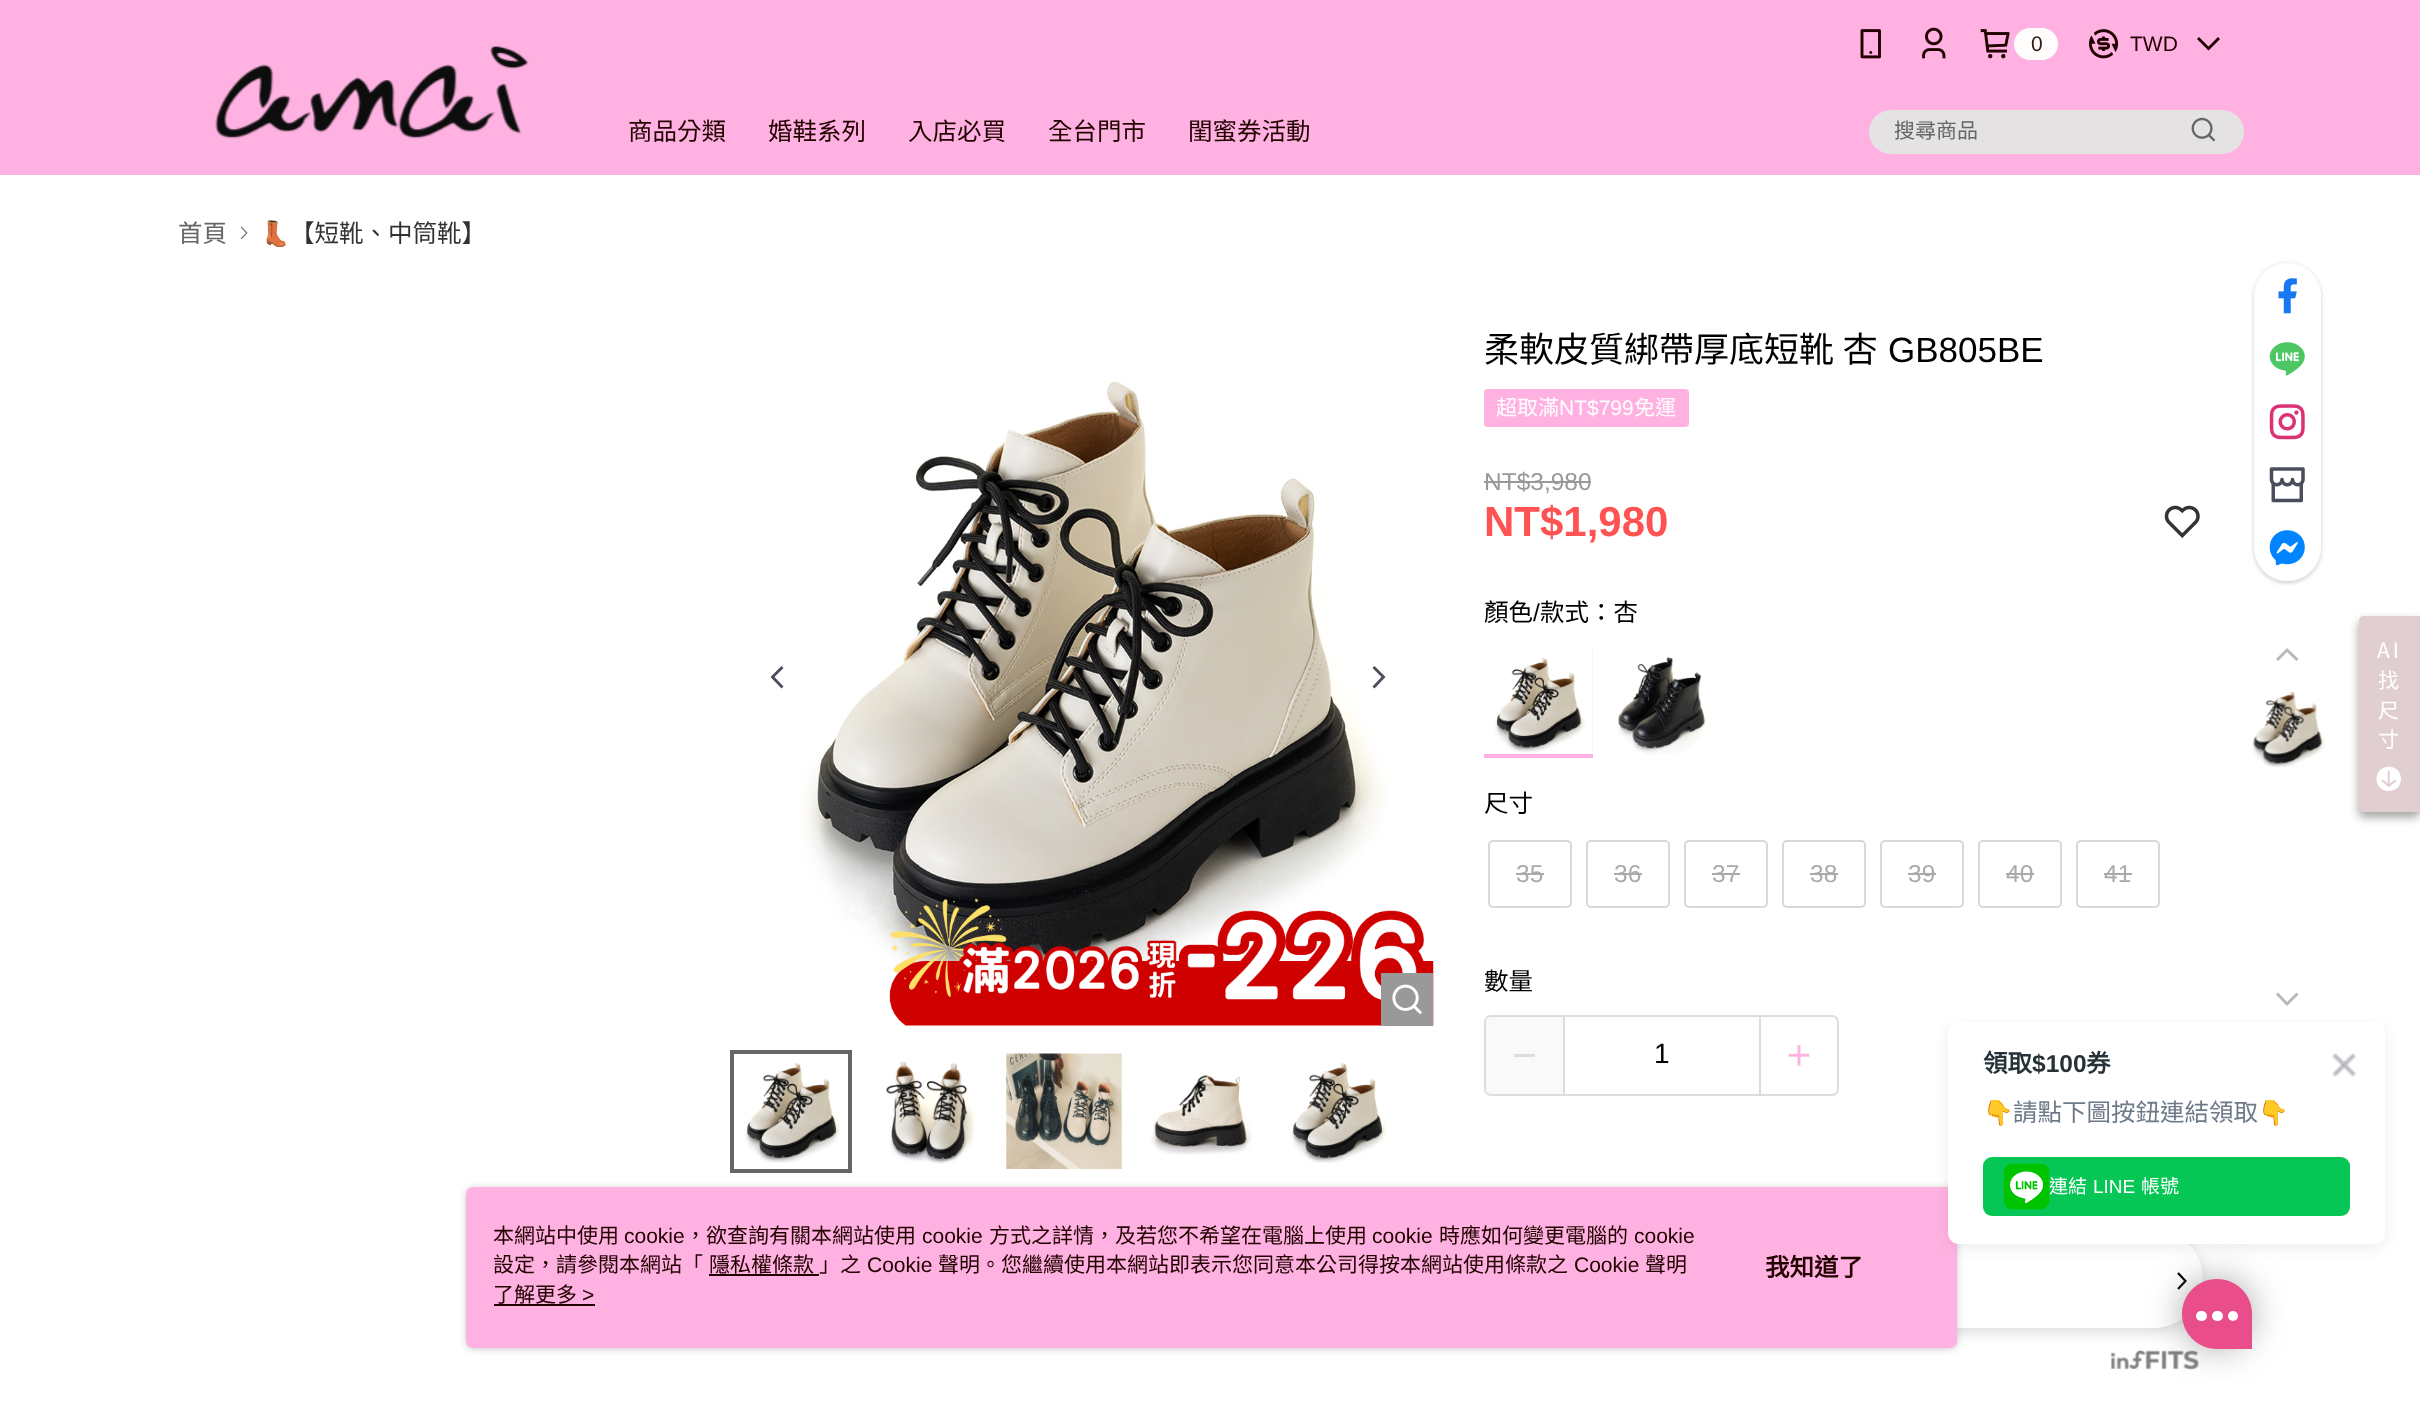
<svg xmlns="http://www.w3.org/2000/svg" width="2420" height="1427">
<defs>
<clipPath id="clip1"><path d="M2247 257h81v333h-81zm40.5 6c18.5 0 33.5 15 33.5 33.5v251c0 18.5-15 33.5-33.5 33.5c-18.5 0-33.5-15-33.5-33.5v-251c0-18.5 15-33.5 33.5-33.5z" clip-rule="evenodd"/></clipPath>
</defs>
<rect width="100%" height="100%" fill="#fff"/>
<rect width="2420" height="175" fill="#ffb2e1"/>
<image x="215" y="46" width="314" height="93" href="media/1.png"/>
<image x="1860" y="29" width="21" height="30" href="media/2.png"/>
<image x="1922" y="27" width="24" height="32" href="media/3.png"/>
<image x="1980" y="29" width="30" height="30" href="media/4.png"/>
<rect x="2014" y="28" width="44" height="32" rx="16" fill="#fffcfc"/>
<text x="2031" y="51" style="font-family:Liberation Sans;font-size:21px;fill:#2e1d10">0</text>
<image x="2088" y="29" width="31" height="30" href="media/5.png"/>
<text x="2130" y="51" style="font-family:Liberation Sans;font-size:21px;fill:#220101">TWD</text>
<path d="M2199 37l-2 2l11.5 11.5l11.5-11.5l-2-2l-9.5 9.5z" fill="#220101"/>
<text x="628" y="140" style="font-family:Noto Sans CJK TC;font-size:24.5px;fill:#220101">商品分類</text>
<text x="768" y="140" style="font-family:Noto Sans CJK TC;font-size:24.5px;fill:#220101">婚鞋系列</text>
<text x="908" y="140" style="font-family:Noto Sans CJK TC;font-size:24.5px;fill:#220101">入店必買</text>
<text x="1048" y="140" style="font-family:Noto Sans CJK TC;font-size:24.5px;fill:#220101">全台門市</text>
<text x="1188" y="140" style="font-family:Noto Sans CJK TC;font-size:24.5px;fill:#220101">閨蜜券活動</text>
<rect x="1869" y="110" width="375" height="44" rx="22" fill="#e4e2e2"/>
<text x="1894" y="138" style="font-family:Noto Sans CJK TC;font-size:21px;fill:#666">搜尋商品</text>
<image x="2191" y="117" width="25" height="25" href="media/6.png"/>
<text x="178" y="242" style="font-family:Noto Sans CJK TC;font-size:24.5px;fill:#666">首頁</text>
<image x="240" y="226" width="8" height="13" href="media/7.png"/>
<text x="260" y="242" style="font-family:Noto Color Emoji;font-size:24.5px;fill:#333">👢</text>
<text x="290" y="242" style="font-family:Noto Sans CJK TC;font-size:24.5px;fill:#333">【短靴、中筒靴】</text>
<path d="M783.5 668l-2-2l-11 11l11 11.5l2-2l-9-9.5z" fill="#4a4e5c"/>
<image x="799" y="381" width="588" height="610" href="media/8.png"/>
<image x="889" y="898" width="545" height="128" href="media/9.png"/>
<rect x="1381" y="973" width="52" height="53" fill="#999"/>
<image x="1392" y="984" width="30" height="31" href="media/10.png"/>
<path d="M1372.5 686.5l2 2l11-11.5l-11-11l-2 2l9 9z" fill="#4a4e5c"/>
<image x="744" y="1062" width="97" height="101" href="media/11.png"/>
<rect x="732" y="1052" width="118" height="119" fill="none" stroke="#666" stroke-width="4"/>
<image x="886" y="1061" width="89" height="103" href="media/12.png"/>
<image x="1006" y="1053" width="116" height="116" href="media/13.png"/>
<image x="1151" y="1074" width="101" height="81" href="media/14.png"/>
<image x="1290" y="1062" width="97" height="101" href="media/15.png"/>
<text x="1484" y="362" word-spacing="1" style="font-family:Noto Sans CJK TC;font-size:35px;fill:#000">柔軟皮質綁帶厚底短靴 杏</text>
<text x="1888" y="362" style="font-family:Liberation Sans;font-size:35px;fill:#000">GB805BE</text>
<rect x="1485" y="390" width="203" height="36" rx="3" fill="#ffb2e1" stroke="#ffb2e1" stroke-width="2"/>
<text x="1496" y="415" style="font-family:Noto Sans CJK TC;font-size:21px;fill:#fff">超取滿</text>
<text x="1559" y="415" style="font-family:Liberation Sans;font-size:21px;fill:#fff">NT$799</text>
<text x="1634" y="415" style="font-family:Noto Sans CJK TC;font-size:21px;fill:#fff">免運</text>
<text x="1484" y="490" style="font-family:Liberation Sans;font-size:24.5px;fill:#999">NT$3,980</text>
<rect x="1484" y="481" width="107" height="2" fill="#999"/>
<text x="1484" y="536" style="font-family:Liberation Sans;font-size:42px;font-weight:bold;fill:#ff5353">NT$1,980</text>
<image x="2164" y="505" width="36" height="33" href="media/16.png"/>
<text x="1484" y="621" style="font-family:Noto Sans CJK TC;font-size:24.5px;fill:#000">顏色</text>
<text x="1533" y="621" style="font-family:Liberation Sans;font-size:24.5px;fill:#000">/</text>
<text x="1540" y="621" style="font-family:Noto Sans CJK TC;font-size:24.5px;fill:#000">款式：杏</text>
<rect x="1484" y="649" width="109" height="105" fill="#f0f0f0"/>
<image x="1484" y="649" width="109" height="105" href="media/17.png"/>
<rect x="1484" y="754" width="109" height="4" fill="#ffb2e1"/>
<image x="1607" y="649" width="108" height="109" href="media/18.png"/>
<text x="1484" y="812" style="font-family:Noto Sans CJK TC;font-size:24.5px;fill:#000">尺寸</text>
<rect x="1489" y="841" width="82" height="66" rx="4" fill="none" stroke="#d8d8d8" stroke-width="2"/>
<text x="1516" y="882" style="font-family:Liberation Sans;font-size:24.5px;fill:#aaa">35</text>
<rect x="1516" y="873" width="28" height="2" fill="#aaa"/>
<rect x="1587" y="841" width="82" height="66" rx="4" fill="none" stroke="#d8d8d8" stroke-width="2"/>
<text x="1614" y="882" style="font-family:Liberation Sans;font-size:24.5px;fill:#aaa">36</text>
<rect x="1614" y="873" width="28" height="2" fill="#aaa"/>
<rect x="1685" y="841" width="82" height="66" rx="4" fill="none" stroke="#d8d8d8" stroke-width="2"/>
<text x="1712" y="882" style="font-family:Liberation Sans;font-size:24.5px;fill:#aaa">37</text>
<rect x="1712" y="873" width="28" height="2" fill="#aaa"/>
<rect x="1783" y="841" width="82" height="66" rx="4" fill="none" stroke="#d8d8d8" stroke-width="2"/>
<text x="1810" y="882" style="font-family:Liberation Sans;font-size:24.5px;fill:#aaa">38</text>
<rect x="1810" y="873" width="28" height="2" fill="#aaa"/>
<rect x="1881" y="841" width="82" height="66" rx="4" fill="none" stroke="#d8d8d8" stroke-width="2"/>
<text x="1908" y="882" style="font-family:Liberation Sans;font-size:24.5px;fill:#aaa">39</text>
<rect x="1908" y="873" width="28" height="2" fill="#aaa"/>
<rect x="1979" y="841" width="82" height="66" rx="4" fill="none" stroke="#d8d8d8" stroke-width="2"/>
<text x="2006" y="882" style="font-family:Liberation Sans;font-size:24.5px;fill:#aaa">40</text>
<rect x="2006" y="873" width="28" height="2" fill="#aaa"/>
<rect x="2077" y="841" width="82" height="66" rx="4" fill="none" stroke="#d8d8d8" stroke-width="2"/>
<text x="2104" y="882" style="font-family:Liberation Sans;font-size:24.5px;fill:#aaa">41</text>
<rect x="2104" y="873" width="28" height="2" fill="#aaa"/>
<text x="1484" y="990" style="font-family:Noto Sans CJK TC;font-size:24.5px;fill:#000">數量</text>
<rect x="1485" y="1016" width="353" height="79" rx="6" fill="none" stroke="#ddd" stroke-width="2"/>
<rect x="1486" y="1017" width="77" height="77" fill="#f1f1f166"/>
<rect x="1514" y="1054" width="21" height="3" fill="#ddd"/>
<rect x="1759" y="1017" width="2" height="77" fill="#ddd"/>
<rect x="1563" y="1017" width="2" height="77" fill="#ddd"/>
<text x="1654" y="1063" style="font-family:Liberation Sans;font-size:28px;fill:#000">1</text>
<image x="1788" y="1045" width="22" height="21" href="media/19.png"/>
<image x="2110" y="1350" width="90" height="20" href="media/20.png"/>
<rect x="1484" y="1232" width="719" height="100" rx="50" fill="#00000026" filter="blur(7px)"/>
<rect x="1484" y="1229" width="719" height="99" rx="49.5" fill="#fff"/>
<path d="M2178 1273l7.5 8l-7.5 8" fill="none" stroke="#000" stroke-width="2.2"/>
<g clip-path="url(#clip1)">
<rect x="2254" y="264" width="67" height="319" rx="33.5" fill="#00000033" filter="blur(2px)"/>
</g>
<rect x="2255" y="264" width="65" height="316" rx="32.5" fill="#ffffffe6" stroke="#fdfdfd" stroke-width="2"/>
<image x="2278" y="278" width="19" height="36" href="media/21.png"/>
<image x="2269" y="342" width="36" height="34" href="media/22.png"/>
<image x="2269" y="404" width="36" height="36" href="media/23.png"/>
<image x="2269" y="467" width="36" height="36" href="media/24.png"/>
<image x="2269" y="530" width="36" height="36" href="media/25.png"/>
<path d="M2296.5 661l2-2l-11.5-11l-11 11l2 2l9-9z" fill="#b7b8be"/>
<image x="2251" y="691" width="75" height="77" href="media/26.png"/>
<path d="M2278 992.5l-2 2l11 11.5l11.5-11.5l-2-2l-9.5 9.5z" fill="#b7b8be"/>
<rect x="2359" y="621" width="61" height="196" rx="5" fill="#0000003b" filter="blur(5px)"/>
<rect x="2359" y="621" width="61" height="196" rx="5" fill="#00000029" filter="blur(5px)"/>
<path d="M2364 616h56v196h-56c-3 0-5-2-5-5v-186c0-3 2-5 5-5z" fill="#e1ced0"/>
<text x="2377" y="658" style="font-family:Noto Sans TC;font-size:21px;letter-spacing:3px;fill:#fff">AI</text>
<text x="2378" y="688" style="font-family:Noto Sans TC;font-size:21px;letter-spacing:3px;fill:#fff">找</text>
<text x="2378" y="718" style="font-family:Noto Sans TC;font-size:21px;letter-spacing:3px;fill:#fff">尺</text>
<text x="2378" y="747" style="font-family:Noto Sans TC;font-size:21px;letter-spacing:3px;fill:#fff">寸</text>
<path d="M2401 779c0 16-24.5 16-24.5 0c0-16.5 24.5-16.5 24.5 0z" fill="#fff"/>
<image x="2381" y="770" width="15" height="17" href="media/27.png"/>
<rect x="466" y="1188" width="1491" height="161" rx="7" fill="#97979780" filter="blur(3.5px)"/>
<rect x="466" y="1187" width="1491" height="161" rx="7" fill="#ffb2e1"/>
<rect x="1948" y="1026" width="437" height="222" rx="11" fill="#232f3517" filter="blur(7px)"/>
<rect x="2182" y="1279" width="70" height="70" rx="35" fill="#777777a3" filter="blur(17.5px)"/>
<rect x="1948" y="1022" width="437" height="222" rx="11" fill="#fff"/>
<text x="1983" y="1072" style="font-family:Noto Sans CJK TC;font-size:24.5px;font-weight:bold;fill:#263238">領取</text>
<text x="2032" y="1072" style="font-family:Liberation Sans;font-size:24.5px;font-weight:bold;fill:#263238">$100</text>
<text x="2086" y="1072" style="font-family:Noto Sans CJK TC;font-size:24.5px;font-weight:bold;fill:#263238">券</text>
<image x="2332" y="1053" width="24" height="24" href="media/28.png"/>
<text x="1983" y="1121" style="font-family:Noto Color Emoji;font-size:24.5px;fill:#6e7a89">👇</text>
<text x="2013" y="1121" style="font-family:Noto Sans CJK TC;font-size:24.5px;fill:#6e7a89">請點下圖按鈕連結領取</text>
<text x="2258" y="1121" style="font-family:Noto Color Emoji;font-size:24.5px;fill:#6e7a89">👇</text>
<rect x="1983" y="1157" width="367" height="59" rx="9" fill="#06c755"/>
<image x="2003" y="1163" width="47" height="47" href="media/29.png"/>
<text x="2049" y="1193" style="font-family:Noto Sans CJK TC;font-size:19px;fill:#fff">連結</text>
<text x="2093" y="1193" style="font-family:Liberation Sans;font-size:19px;fill:#fff">LINE</text>
<text x="2141" y="1193" style="font-family:Noto Sans CJK TC;font-size:19px;fill:#fff">帳號</text>
<text x="493" y="1243" style="font-family:Noto Sans CJK TC;font-size:21px;fill:#220101">本網站中使用</text>
<text x="624" y="1243" style="font-family:Liberation Sans;font-size:21px;fill:#220101">cookie</text>
<text x="685" y="1243" style="font-family:Noto Sans CJK TC;font-size:21px;fill:#220101">，欲查詢有關本網站使用</text>
<text x="922" y="1243" style="font-family:Liberation Sans;font-size:21px;fill:#220101">cookie</text>
<text x="989" y="1243" style="font-family:Noto Sans CJK TC;font-size:21px;fill:#220101">方式之詳情，及若您不希望在電腦上使用</text>
<text x="1372" y="1243" style="font-family:Liberation Sans;font-size:21px;fill:#220101">cookie</text>
<text x="1439" y="1243" style="font-family:Noto Sans CJK TC;font-size:21px;fill:#220101">時應如何變更電腦的</text>
<text x="1634" y="1243" style="font-family:Liberation Sans;font-size:21px;fill:#220101">cookie</text>
<text x="493" y="1272" style="font-family:Noto Sans CJK TC;font-size:21px;fill:#220101">設定，請參閱本網站「</text>
<text x="709" y="1272" style="font-family:Noto Sans CJK TC;font-size:21px;fill:#220101">隱私權條款</text>
<rect x="709" y="1274" width="110" height="2" fill="#220101"/>
<text x="819" y="1272" style="font-family:Noto Sans CJK TC;font-size:21px;fill:#220101">」之</text>
<text x="867" y="1272" style="font-family:Liberation Sans;font-size:21px;fill:#220101">Cookie</text>
<text x="938" y="1272" style="font-family:Noto Sans CJK TC;font-size:21px;fill:#220101">聲明。您繼續使用本網站即表示您同意本公司得按本網站使用條款之</text>
<text x="1574" y="1272" style="font-family:Liberation Sans;font-size:21px;fill:#220101">Cookie</text>
<text x="1645" y="1272" style="font-family:Noto Sans CJK TC;font-size:21px;fill:#220101">聲明</text>
<text x="493" y="1302" style="font-family:Noto Sans CJK TC;font-size:21px;fill:#220101">了解更多</text>
<text x="582" y="1302" style="font-family:Liberation Sans;font-size:21px;fill:#220101">&gt;</text>
<rect x="494" y="1304" width="101" height="2" fill="#220101"/>
<text x="1765" y="1276" style="font-family:Noto Sans CJK TC;font-size:24.5px;font-weight:bold;fill:#220101">我知道了</text>
<path d="M2217 1279c19.5 0 35 15.5 35 35v35h-35c-19.5 0-35-15.5-35-35c0-19.5 15.5-35 35-35z" fill="#e94d8a"/>
<rect x="2196" y="1311" width="11" height="10" rx="5" fill="#fff"/>
<rect x="2212" y="1311" width="11" height="10" rx="5" fill="#fff"/>
<circle cx="2233" cy="1316" r="5" fill="#fff"/>
</svg>
